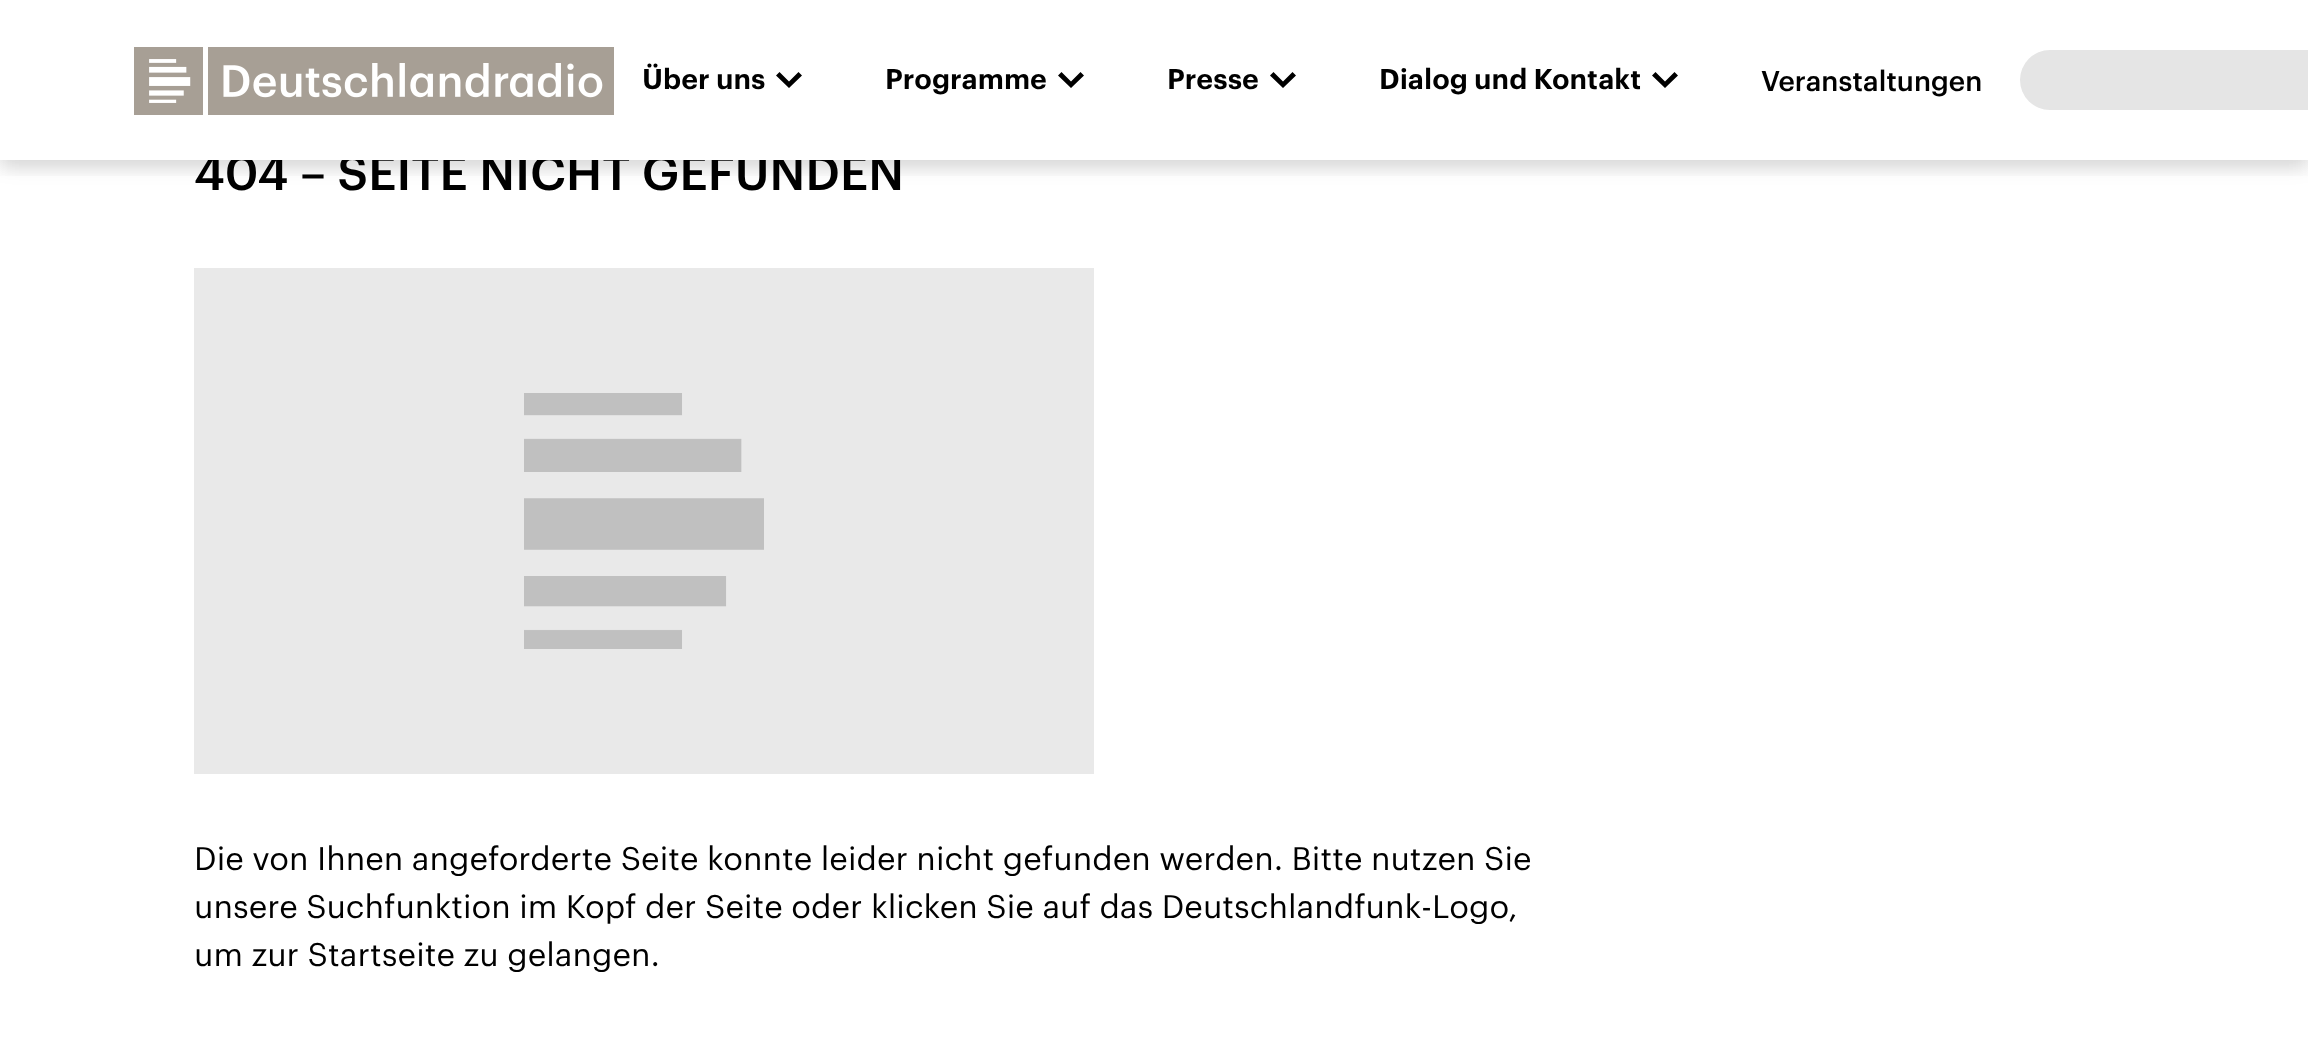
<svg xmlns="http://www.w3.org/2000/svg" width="2308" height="1038">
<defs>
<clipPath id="clip1"><rect x="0" y="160" width="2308" height="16"/></clipPath>
</defs>
<rect width="100%" height="100%" fill="#fff"/>
<rect y="6" width="2308" height="160" fill="#00000017" filter="blur(10px)"/>
<text x="194" y="190" style="font-family:Graphik;font-size:48px;font-weight:500;fill:#000">404 – SEITE NICHT GEFUNDEN</text>
<rect width="2308" height="160" fill="#fff"/>
<g clip-path="url(#clip1)">
<rect y="8" width="2308" height="160" fill="#00000017" filter="blur(10px)"/>
</g>
<image x="134" y="47" width="480" height="68" href="media/1.png"/>
<text x="642" y="89" style="font-family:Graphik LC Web;font-size:28px;font-weight:600;fill:#000">Über uns</text>
<path d="M798.5 72l3.5 3.5l-13 12.5l-13-12.5l3.5-3.5l9.5 9.5z" fill="#000"/>
<text x="885" y="89" style="font-family:Graphik LC Web;font-size:28px;font-weight:600;fill:#000">Programme</text>
<path d="M1080.5 72l3.5 3.5l-13 12.5l-13-12.5l3.5-3.5l9.5 9.5z" fill="#000"/>
<text x="1167" y="89" style="font-family:Graphik LC Web;font-size:28px;font-weight:600;fill:#000">Presse</text>
<path d="M1292.5 72l3.5 3.5l-13 12.5l-13-12.5l3.5-3.5l9.5 9.5z" fill="#000"/>
<text x="1379" y="89" style="font-family:Graphik LC Web;font-size:28px;font-weight:600;fill:#000">Dialog und Kontakt</text>
<path d="M1674.5 72l3.5 3.5l-13 12.5l-13-12.5l3.5-3.5l9.5 9.5z" fill="#000"/>
<text x="1761" y="91" style="font-family:Graphik;font-size:28px;font-weight:500;fill:#000">Veranstaltungen</text>
<rect x="2020" y="50" width="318" height="60" rx="30" fill="#e5e5e5"/>
<image x="194" y="268" width="900" height="506" href="media/2.png"/>
<text x="194" y="870" style="font-family:Graphik;font-size:32px;fill:#000">Die von Ihnen angeforderte Seite konnte leider nicht gefunden werden. Bitte nutzen Sie</text>
<text x="194" y="918" style="font-family:Graphik;font-size:32px;fill:#000">unsere Suchfunktion im Kopf der Seite oder klicken Sie auf das Deutschlandfunk</text>
<text x="1421" y="918" style="font-family:Graphik;font-size:32px;fill:#000">-Logo,</text>
<text x="194" y="966" style="font-family:Graphik;font-size:32px;fill:#000">um zur Startseite zu gelangen.</text>
</svg>
